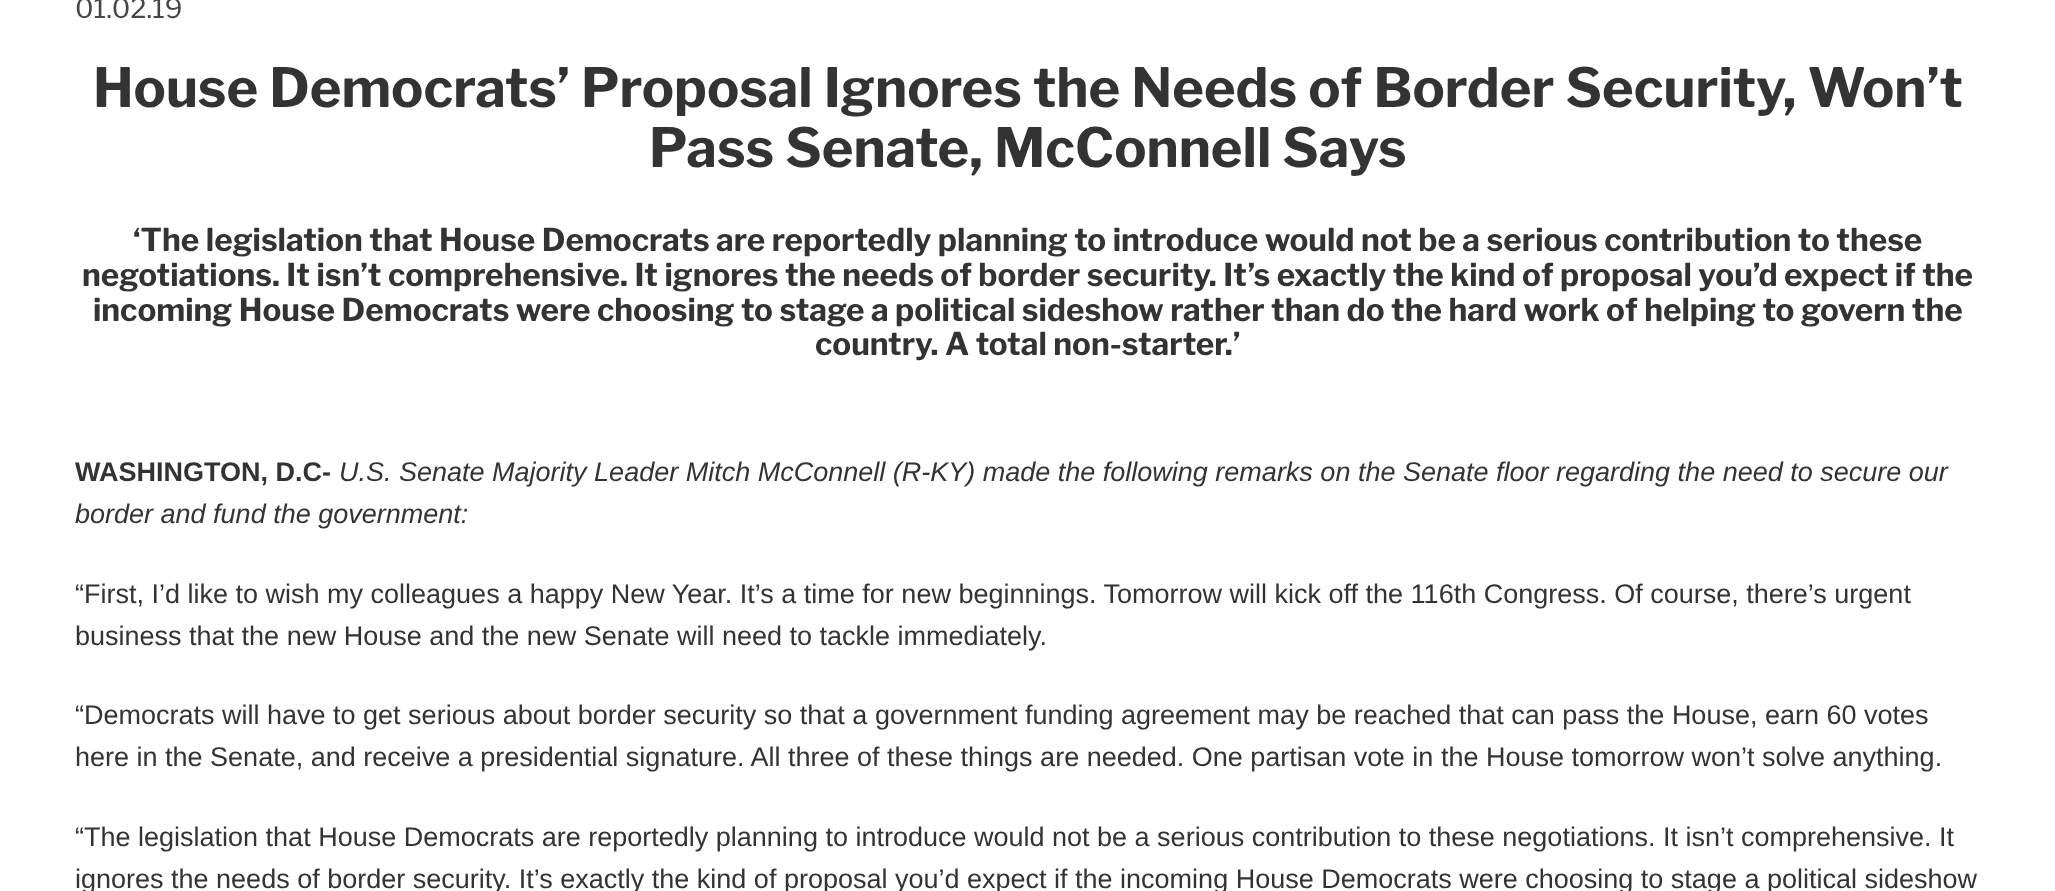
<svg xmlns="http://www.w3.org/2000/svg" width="2055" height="891">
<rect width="100%" height="100%" fill="#fff"/>
<text x="75" y="18" style="font-family:Libre Franklin;font-size:27px;fill:#464646">01.02.19</text>
<text x="93" y="107" style="font-family:Libre Franklin;font-size:54px;font-weight:bold;fill:#333">House Democrats’ Proposal Ignores the Needs of Border Security, Won’t</text>
<text x="649" y="167" style="font-family:Libre Franklin;font-size:54px;font-weight:bold;fill:#333">Pass Senate, McConnell Says</text>
<text x="133" y="251" style="font-family:Libre Franklin;font-size:31.5px;font-weight:bold;fill:#333">‘The legislation that House Democrats are reportedly planning to introduce would not be a serious contribution to these</text>
<text x="82" y="286" style="font-family:Libre Franklin;font-size:31.5px;font-weight:bold;fill:#333">negotiations. It isn’t comprehensive. It ignores the needs of border security. It’s exactly the kind of proposal you’d expect if the</text>
<text x="93" y="321" style="font-family:Libre Franklin;font-size:31.5px;font-weight:bold;fill:#333">incoming House Democrats were choosing to stage a political sideshow rather than do the hard work of helping to govern the</text>
<text x="815" y="355" style="font-family:Libre Franklin;font-size:31.5px;font-weight:bold;fill:#333">country. A total non-starter.’</text>
<text x="75" y="481" style="font-family:Liberation Sans;font-size:27px;font-weight:bold;fill:#333">WASHINGTON, D.C-</text>
<text x="339" y="481" style="font-family:Liberation Sans;font-size:27px;font-style:italic;fill:#333">U.S. Senate Majority Leader Mitch McConnell (R-KY) made the following remarks on the Senate floor regarding the need to secure our</text>
<text x="75" y="523" style="font-family:Liberation Sans;font-size:27px;font-style:italic;fill:#333">border and fund the government:</text>
<text x="75" y="603" style="font-family:Liberation Sans;font-size:27px;fill:#333">“First, I’d like to wish my colleagues a happy New Year. It’s a time for new beginnings. Tomorrow will kick off the 116th Congress. Of course, there’s urgent</text>
<text x="75" y="645" style="font-family:Liberation Sans;font-size:27px;fill:#333">business that the new House and the new Senate will need to tackle immediately.</text>
<text x="75" y="724" style="font-family:Liberation Sans;font-size:27px;fill:#333">“Democrats will have to get serious about border security so that a government funding agreement may be reached that can pass the House, earn 60 votes</text>
<text x="75" y="766" style="font-family:Liberation Sans;font-size:27px;fill:#333">here in the Senate, and receive a presidential signature. All three of these things are needed. One partisan vote in the House tomorrow won’t solve anything.</text>
<text x="75" y="846" style="font-family:Liberation Sans;font-size:27px;fill:#333">“The legislation that House Democrats are reportedly planning to introduce would not be a serious contribution to these negotiations. It isn’t comprehensive. It</text>
<text x="75" y="888" style="font-family:Liberation Sans;font-size:27px;fill:#333">ignores the needs of border security. It’s exactly the kind of proposal you’d expect if the incoming House Democrats were choosing to stage a political sideshow</text>
</svg>
